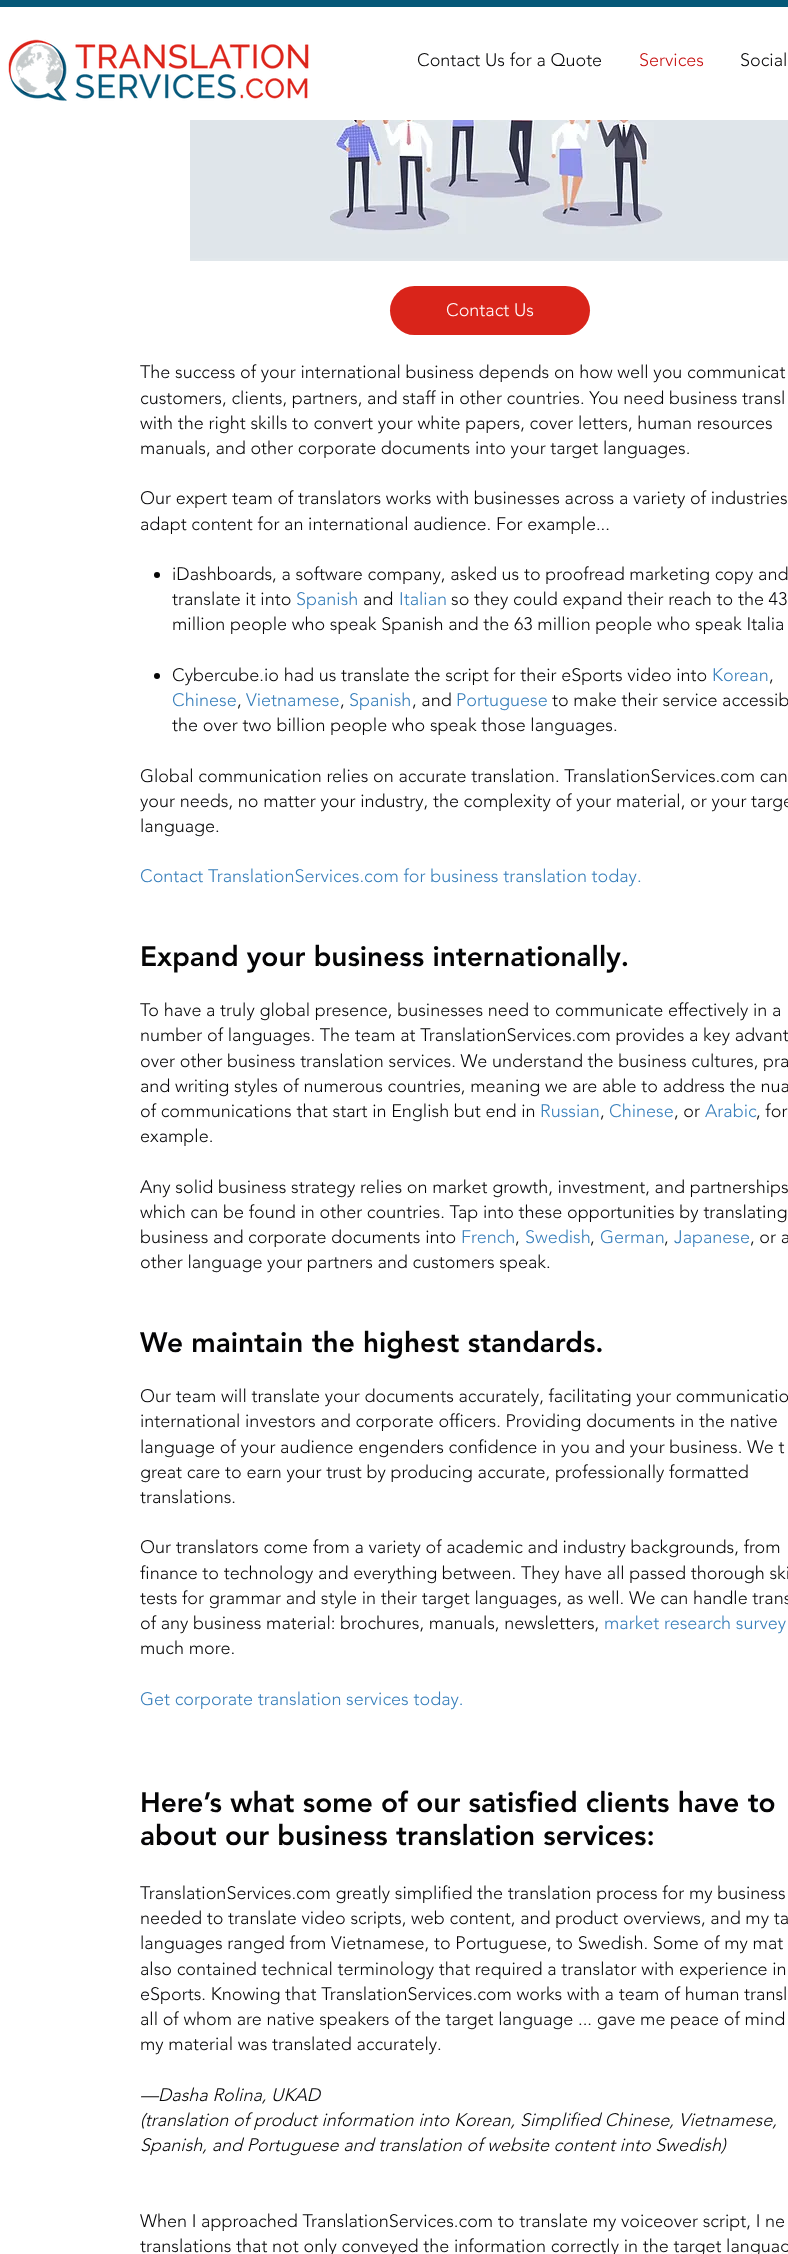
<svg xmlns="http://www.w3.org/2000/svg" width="788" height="2254">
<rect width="100%" height="100%" fill="#fff"/>
<rect width="788" height="7" fill="#065878"/>
<image x="8" y="39" width="301" height="62" href="media/1.png"/>
<text x="417" y="66" style="font-family:'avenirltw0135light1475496';font-size:18px;font-weight:300;fill:#050506">Contact Us for a Quote</text>
<text x="639" y="66" style="font-family:'avenirltw0135light1475496';font-size:18px;font-weight:300;fill:#c71212">Services</text>
<text x="740" y="66" style="font-family:'avenirltw0135light1475496';font-size:18px;font-weight:300;fill:#050506">Social</text>
<image x="190" y="120" width="598" height="141" href="media/2.png"/>
<rect x="390" y="286" width="200" height="49" rx="24.5" fill="#d9241a"/>
<text x="446" y="316" style="font-family:'avenirltw0135light1475496';font-size:18px;font-weight:300;fill:#fff">Contact Us</text>
<text x="140" y="378" style="font-family:'avenirltw0135light1475496';font-size:18px;font-weight:300;fill:#050506">The success of your international business depends on how well you communicat</text>
<text x="140" y="404" style="font-family:'avenirltw0135light1475496';font-size:18px;font-weight:300;fill:#050506">customers, clients, partners, and staff in other countries. You need business transl</text>
<text x="140" y="429" style="font-family:'avenirltw0135light1475496';font-size:18px;font-weight:300;fill:#050506">with the right skills to convert your white papers, cover letters, human resources</text>
<text x="140" y="454" style="font-family:'avenirltw0135light1475496';font-size:18px;font-weight:300;fill:#050506">manuals, and other corporate documents into your target languages.</text>
<text x="140" y="504" style="font-family:'avenirltw0135light1475496';font-size:18px;font-weight:300;fill:#050506">Our expert team of translators works with businesses across a variety of industries</text>
<text x="140" y="530" style="font-family:'avenirltw0135light1475496';font-size:18px;font-weight:300;fill:#050506">adapt content for an international audience. For example...</text>
<circle cx="157" cy="575" r="3" fill="#050506"/>
<text x="172" y="580" style="font-family:'avenirltw0135light1475496';font-size:18px;font-weight:300;fill:#050506">iDashboards, a software company, asked us to proofread marketing copy and</text>
<text x="172" y="605" style="font-family:'avenirltw0135light1475496';font-size:18px;font-weight:300;fill:#050506">translate it into</text>
<text x="296" y="605" style="font-family:'avenirltw0135light1475496';font-size:18px;font-weight:300;fill:#387fbb">Spanish</text>
<text x="363" y="605" style="font-family:'avenirltw0135light1475496';font-size:18px;font-weight:300;fill:#050506">and</text>
<text x="399" y="605" style="font-family:'avenirltw0135light1475496';font-size:18px;font-weight:300;fill:#387fbb">Italian</text>
<text x="451" y="605" style="font-family:'avenirltw0135light1475496';font-size:18px;font-weight:300;fill:#050506">so they could expand their reach to the 43</text>
<text x="172" y="630" style="font-family:'avenirltw0135light1475496';font-size:18px;font-weight:300;fill:#050506">million people who speak Spanish and the 63 million people who speak Italia</text>
<circle cx="157" cy="676" r="3" fill="#050506"/>
<text x="172" y="681" style="font-family:'avenirltw0135light1475496';font-size:18px;font-weight:300;fill:#050506">Cybercube.io had us translate the script for their eSports video into</text>
<text x="712" y="681" style="font-family:'avenirltw0135light1475496';font-size:18px;font-weight:300;fill:#387fbb">Korean</text>
<text x="769" y="681" style="font-family:'avenirltw0135light1475496';font-size:18px;font-weight:300;fill:#050506">,</text>
<text x="172" y="706" style="font-family:'avenirltw0135light1475496';font-size:18px;font-weight:300;fill:#387fbb">Chinese</text>
<text x="237" y="706" style="font-family:'avenirltw0135light1475496';font-size:18px;font-weight:300;fill:#050506">,</text>
<text x="246" y="706" style="font-family:'avenirltw0135light1475496';font-size:18px;font-weight:300;fill:#387fbb">Vietnamese</text>
<text x="340" y="706" style="font-family:'avenirltw0135light1475496';font-size:18px;font-weight:300;fill:#050506">,</text>
<text x="349" y="706" style="font-family:'avenirltw0135light1475496';font-size:18px;font-weight:300;fill:#387fbb">Spanish</text>
<text x="412" y="706" style="font-family:'avenirltw0135light1475496';font-size:18px;font-weight:300;fill:#050506">, and</text>
<text x="456" y="706" style="font-family:'avenirltw0135light1475496';font-size:18px;font-weight:300;fill:#387fbb">Portuguese</text>
<text x="552" y="706" style="font-family:'avenirltw0135light1475496';font-size:18px;font-weight:300;fill:#050506">to make their service accessib</text>
<text x="172" y="731" style="font-family:'avenirltw0135light1475496';font-size:18px;font-weight:300;fill:#050506">the over two billion people who speak those languages.</text>
<text x="140" y="782" style="font-family:'avenirltw0135light1475496';font-size:18px;font-weight:300;fill:#050506">Global communication relies on accurate translation. TranslationServices.com can</text>
<text x="140" y="807" style="font-family:'avenirltw0135light1475496';font-size:18px;font-weight:300;fill:#050506">your needs, no matter your industry, the complexity of your material, or your targe</text>
<text x="140" y="832" style="font-family:'avenirltw0135light1475496';font-size:18px;font-weight:300;fill:#050506">language.</text>
<text x="140" y="882" style="font-family:'avenirltw0135light1475496';font-size:18px;font-weight:300;fill:#387fbb">Contact TranslationServices.com for business translation today.</text>
<text x="140" y="966" style="font-family:'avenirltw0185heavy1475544';font-size:28px;font-weight:900;fill:#050506">Expand your business internationally.</text>
<text x="140" y="1016" style="font-family:'avenirltw0135light1475496';font-size:18px;font-weight:300;fill:#050506">To have a truly global presence, businesses need to communicate effectively in a</text>
<text x="140" y="1041" style="font-family:'avenirltw0135light1475496';font-size:18px;font-weight:300;fill:#050506">number of languages. The team at TranslationServices.com provides a key advant</text>
<text x="140" y="1067" style="font-family:'avenirltw0135light1475496';font-size:18px;font-weight:300;fill:#050506">over other business translation services. We understand the business cultures, pra</text>
<text x="140" y="1092" style="font-family:'avenirltw0135light1475496';font-size:18px;font-weight:300;fill:#050506">and writing styles of numerous countries, meaning we are able to address the nua</text>
<text x="140" y="1117" style="font-family:'avenirltw0135light1475496';font-size:18px;font-weight:300;fill:#050506">of communications that start in English but end in</text>
<text x="540" y="1117" style="font-family:'avenirltw0135light1475496';font-size:18px;font-weight:300;fill:#387fbb">Russian</text>
<text x="600" y="1117" style="font-family:'avenirltw0135light1475496';font-size:18px;font-weight:300;fill:#050506">,</text>
<text x="609" y="1117" style="font-family:'avenirltw0135light1475496';font-size:18px;font-weight:300;fill:#387fbb">Chinese</text>
<text x="674" y="1117" style="font-family:'avenirltw0135light1475496';font-size:18px;font-weight:300;fill:#050506">, or</text>
<text x="705" y="1117" style="font-family:'avenirltw0135light1475496';font-size:18px;font-weight:300;fill:#387fbb">Arabic</text>
<text x="756" y="1117" style="font-family:'avenirltw0135light1475496';font-size:18px;font-weight:300;fill:#050506">, for</text>
<text x="140" y="1142" style="font-family:'avenirltw0135light1475496';font-size:18px;font-weight:300;fill:#050506">example.</text>
<text x="140" y="1193" style="font-family:'avenirltw0135light1475496';font-size:18px;font-weight:300;fill:#050506">Any solid business strategy relies on market growth, investment, and partnerships</text>
<text x="140" y="1218" style="font-family:'avenirltw0135light1475496';font-size:18px;font-weight:300;fill:#050506">which can be found in other countries. Tap into these opportunities by translating</text>
<text x="140" y="1243" style="font-family:'avenirltw0135light1475496';font-size:18px;font-weight:300;fill:#050506">business and corporate documents into</text>
<text x="461" y="1243" style="font-family:'avenirltw0135light1475496';font-size:18px;font-weight:300;fill:#387fbb">French</text>
<text x="515" y="1243" style="font-family:'avenirltw0135light1475496';font-size:18px;font-weight:300;fill:#050506">,</text>
<text x="525" y="1243" style="font-family:'avenirltw0135light1475496';font-size:18px;font-weight:300;fill:#387fbb">Swedish</text>
<text x="590" y="1243" style="font-family:'avenirltw0135light1475496';font-size:18px;font-weight:300;fill:#050506">,</text>
<text x="600" y="1243" style="font-family:'avenirltw0135light1475496';font-size:18px;font-weight:300;fill:#387fbb">German</text>
<text x="664" y="1243" style="font-family:'avenirltw0135light1475496';font-size:18px;font-weight:300;fill:#050506">,</text>
<text x="674" y="1243" style="font-family:'avenirltw0135light1475496';font-size:18px;font-weight:300;fill:#387fbb">Japanese</text>
<text x="750" y="1243" style="font-family:'avenirltw0135light1475496';font-size:18px;font-weight:300;fill:#050506">, or a</text>
<text x="140" y="1268" style="font-family:'avenirltw0135light1475496';font-size:18px;font-weight:300;fill:#050506">other language your partners and customers speak.</text>
<text x="140" y="1352" style="font-family:'avenirltw0185heavy1475544';font-size:28px;font-weight:900;fill:#050506">We maintain the highest standards.</text>
<text x="140" y="1402" style="font-family:'avenirltw0135light1475496';font-size:18px;font-weight:300;fill:#050506">Our team will translate your documents accurately, facilitating your communicatio</text>
<text x="140" y="1427" style="font-family:'avenirltw0135light1475496';font-size:18px;font-weight:300;fill:#050506">international investors and corporate officers. Providing documents in the native</text>
<text x="140" y="1453" style="font-family:'avenirltw0135light1475496';font-size:18px;font-weight:300;fill:#050506">language of your audience engenders confidence in you and your business. We t</text>
<text x="140" y="1478" style="font-family:'avenirltw0135light1475496';font-size:18px;font-weight:300;fill:#050506">great care to earn your trust by producing accurate, professionally formatted</text>
<text x="140" y="1503" style="font-family:'avenirltw0135light1475496';font-size:18px;font-weight:300;fill:#050506">translations.</text>
<text x="140" y="1553" style="font-family:'avenirltw0135light1475496';font-size:18px;font-weight:300;fill:#050506">Our translators come from a variety of academic and industry backgrounds, from</text>
<text x="140" y="1579" style="font-family:'avenirltw0135light1475496';font-size:18px;font-weight:300;fill:#050506">finance to technology and everything between. They have all passed thorough ski</text>
<text x="140" y="1604" style="font-family:'avenirltw0135light1475496';font-size:18px;font-weight:300;fill:#050506">tests for grammar and style in their target languages, as well. We can handle trans</text>
<text x="140" y="1629" style="font-family:'avenirltw0135light1475496';font-size:18px;font-weight:300;fill:#050506">of any business material: brochures, manuals, newsletters,</text>
<text x="604" y="1629" style="font-family:'avenirltw0135light1475496';font-size:18px;font-weight:300;fill:#387fbb">market research survey</text>
<text x="140" y="1654" style="font-family:'avenirltw0135light1475496';font-size:18px;font-weight:300;fill:#050506">much more.</text>
<text x="140" y="1705" style="font-family:'avenirltw0135light1475496';font-size:18px;font-weight:300;fill:#387fbb">Get corporate translation services today.</text>
<text x="140" y="1812" style="font-family:'avenirltw0185heavy1475544';font-size:28px;font-weight:900;fill:#050506">Here’s what some of our satisfied clients have to</text>
<text x="140" y="1845" style="font-family:'avenirltw0185heavy1475544';font-size:28px;font-weight:900;fill:#050506">about our business translation services:</text>
<text x="140" y="1899" style="font-family:'avenirltw0135light1475496';font-size:18px;font-weight:300;fill:#050506">TranslationServices.com greatly simplified the translation process for my business</text>
<text x="140" y="1924" style="font-family:'avenirltw0135light1475496';font-size:18px;font-weight:300;fill:#050506">needed to translate video scripts, web content, and product overviews, and my ta</text>
<text x="140" y="1949" style="font-family:'avenirltw0135light1475496';font-size:18px;font-weight:300;fill:#050506">languages ranged from Vietnamese, to Portuguese, to Swedish. Some of my mat</text>
<text x="140" y="1975" style="font-family:'avenirltw0135light1475496';font-size:18px;font-weight:300;fill:#050506">also contained technical terminology that required a translator with experience in</text>
<text x="140" y="2000" style="font-family:'avenirltw0135light1475496';font-size:18px;font-weight:300;fill:#050506">eSports. Knowing that TranslationServices.com works with a team of human transl</text>
<text x="140" y="2025" style="font-family:'avenirltw0135light1475496';font-size:18px;font-weight:300;fill:#050506">all of whom are native speakers of the target language ... gave me peace of mind</text>
<text x="140" y="2050" style="font-family:'avenirltw0135light1475496';font-size:18px;font-weight:300;fill:#050506">my material was translated accurately.</text>
<text x="140" y="2101" style="font-family:'avenirltw0135light1475496';font-size:18px;font-weight:300;font-style:italic;fill:#050506">—Dasha Rolina, UKAD</text>
<text x="140" y="2126" style="font-family:'avenirltw0135light1475496';font-size:18px;font-weight:300;font-style:italic;fill:#050506">(translation of product information into Korean, Simplified Chinese, Vietnamese,</text>
<text x="140" y="2151" style="font-family:'avenirltw0135light1475496';font-size:18px;font-weight:300;font-style:italic;fill:#050506">Spanish, and Portuguese and translation of website content into Swedish)</text>
<text x="140" y="2227" style="font-family:'avenirltw0135light1475496';font-size:18px;font-weight:300;fill:#050506">When I approached TranslationServices.com to translate my voiceover script, I ne</text>
<text x="140" y="2252" style="font-family:'avenirltw0135light1475496';font-size:18px;font-weight:300;fill:#050506">translations that not only conveyed the information correctly in the target languag</text>
</svg>
